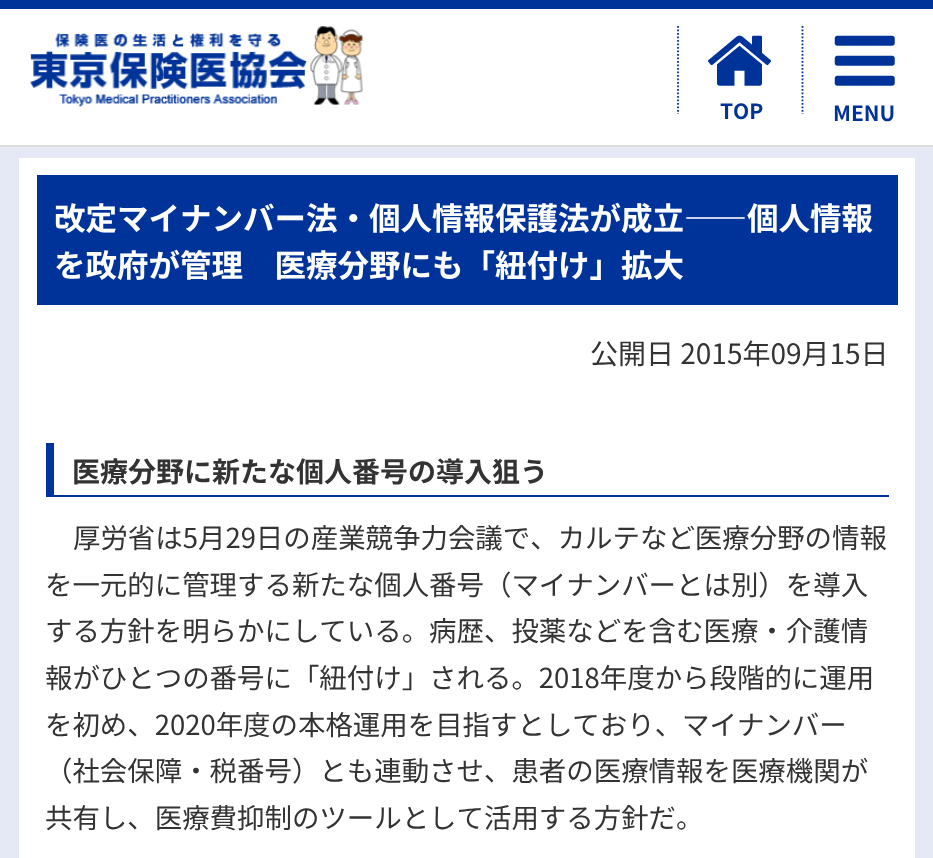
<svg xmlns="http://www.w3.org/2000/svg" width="933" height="858">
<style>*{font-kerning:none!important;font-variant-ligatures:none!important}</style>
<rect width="100%" height="100%" fill="#e4e9f5"/>
<rect y="9" width="933" height="136" fill="#fff"/>
<rect width="933" height="9" fill="#039"/>
<rect y="145" width="933" height="2" fill="#ddd"/>
<image x="29" y="26" width="334" height="81" href="media/1.png"/>
<path d="M802.5 26v88" fill="none" stroke="#039" stroke-width="1.8" stroke-dasharray="1.75 1.75"/>
<path d="M678 26v88" fill="none" stroke="#039" stroke-width="1.8" stroke-dasharray="1.75 1.75"/>
<image x="708" y="35" width="63" height="51" href="media/2.png"/>
<text x="720" y="119" style="font-family:Noto Sans JP;font-size:21px;font-weight:bold;fill:#039">TOP</text>
<image x="834" y="35" width="61" height="51" href="media/3.png"/>
<text x="833" y="121" style="font-family:Noto Sans JP;font-size:21px;font-weight:bold;fill:#039">MENU</text>
<rect x="19" y="158" width="896" height="700" fill="#fff"/>
<rect x="37" y="175" width="861" height="130" fill="#039"/>
<text x="54" y="230" style="font-family:Noto Sans JP;font-size:31.5px;font-weight:bold;fill:#fff">改定マイナンバー法・個人情報保護法が成立――個人情報</text>
<text x="54" y="277" style="font-family:Noto Sans JP;font-size:31.5px;font-weight:bold;fill:#fff">を政府が管理　医療分野にも「紐付け」拡大</text>
<text x="590" y="364" style="font-family:Noto Sans JP;font-size:28px;fill:#333">公開日 2015年09月15日</text>
<rect x="46" y="495" width="843" height="2" fill="#039"/>
<rect x="46" y="443" width="8" height="54" fill="#039"/>
<text x="72" y="482" style="font-family:Noto Sans JP;font-size:28px;font-weight:bold;fill:#333">医療分野に新たな個人番号の導入狙う</text>
<text x="73" y="548" style="font-family:Noto Sans JP;font-size:27.45px;fill:#333">厚労省は5月29日の産業競争力会議で、カルテなど医療分野の情報</text>
<text x="45" y="595" style="font-family:Noto Sans JP;font-size:27.45px;fill:#333">を一元的に管理する新たな個人番号（マイナンバーとは別）を導入</text>
<text x="45" y="641" style="font-family:Noto Sans JP;font-size:27.45px;fill:#333">する方針を明らかにしている。病歴、投薬などを含む医療・介護情</text>
<text x="45" y="688" style="font-family:Noto Sans JP;font-size:27.45px;fill:#333">報がひとつの番号に「紐付け」される。2018年度から段階的に運用</text>
<text x="45" y="735" style="font-family:Noto Sans JP;font-size:27.45px;fill:#333">を初め、2020年度の本格運用を目指すとしており、マイナンバー</text>
<text x="45" y="781" style="font-family:Noto Sans JP;font-size:27.45px;fill:#333">（社会保障・税番号）とも連動させ、患者の医療情報を医療機関が</text>
<text x="45" y="828" style="font-family:Noto Sans JP;font-size:27.45px;fill:#333">共有し、医療費抑制のツールとして活用する方針だ。</text>
</svg>
